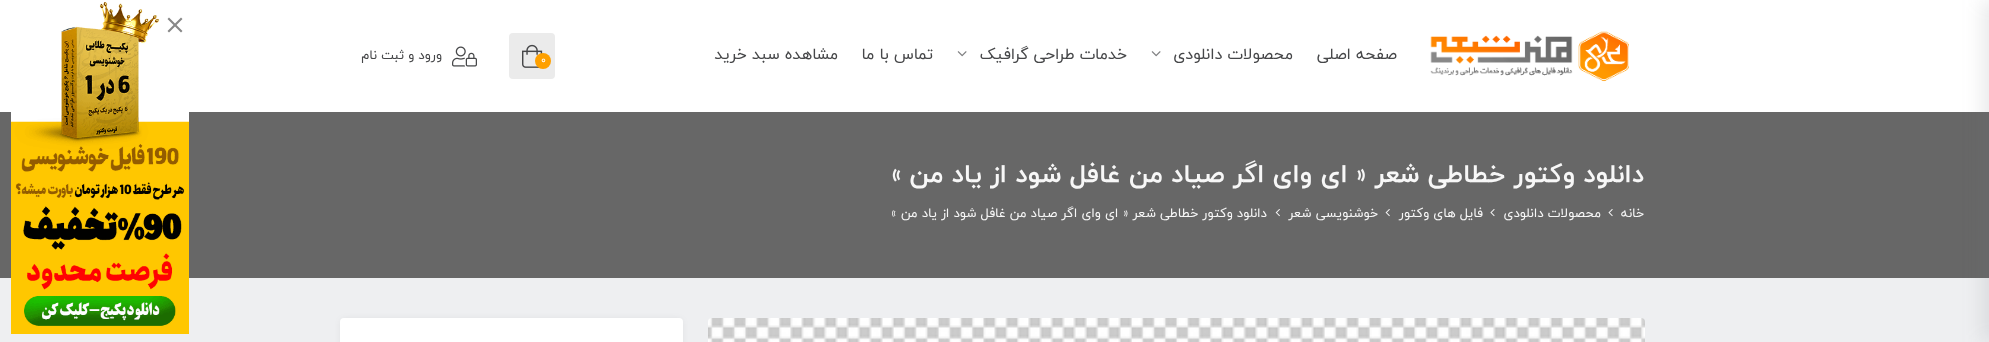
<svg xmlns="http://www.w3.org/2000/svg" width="1989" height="342">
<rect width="100%" height="100%" fill="#fff"/>
<rect y="112" width="1989" height="166" fill="#676767"/>
<rect y="278" width="1989" height="64" fill="#eeeff1"/>
<rect x="1983" width="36" height="342" fill="#73767f2b" filter="blur(10px)"/>
<image x="1430" y="31" width="199" height="51" href="media/1.png"/>
<text x="1397" y="59" style="font-family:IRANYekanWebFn;font-size:16px;direction:rtl;fill:#464749">صفحه اصلی</text>
<text x="1293" y="59" style="font-family:IRANYekanWebFn;font-size:16px;direction:rtl;fill:#464749">محصولات دانلودی</text>
<image x="1151" y="51" width="10" height="6" href="media/2.png"/>
<text x="1127" y="59" style="font-family:IRANYekanWebFn;font-size:16px;direction:rtl;fill:#464749">خدمات طراحی گرافیک</text>
<image x="957" y="51" width="10" height="6" href="media/2.png"/>
<text x="933" y="59" style="font-family:IRANYekanWebFn;font-size:16px;direction:rtl;fill:#464749">تماس با ما</text>
<text x="838" y="59" style="font-family:IRANYekanWebFn;font-size:16px;direction:rtl;fill:#464749">مشاهده سبد خرید</text>
<rect x="509" y="33" width="46" height="46" rx="4" fill="#ebebeb"/>
<image x="522" y="44" width="21" height="24" href="media/3.png"/>
<circle cx="543" cy="61" r="8" fill="#fea000"/>
<text x="541" y="63" style="font-family:IRANYekanWebFn;font-size:10px;fill:#fff">0</text>
<image x="452" y="46" width="25" height="21" href="media/4.png"/>
<text x="442" y="59" style="font-family:IRANYekanWebFn;font-size:13px;direction:rtl;fill:#464749">ورود و ثبت نام</text>
<text x="1644" y="182" style="font-family:IRANYekanWebFn;font-size:26px;font-weight:bold;direction:rtl;fill:#f7f7f7">دانلود وکتور خطاطی شعر « ای وای اگر صیاد من غافل شود از یاد من »</text>
<text x="1644" y="217" style="font-family:IRANYekanWebFn;font-size:13px;direction:rtl;fill:#f7f7f7">خانه</text>
<image x="1608" y="209" width="5" height="8" href="media/5.png"/>
<text x="1601" y="217" style="font-family:IRANYekanWebFn;font-size:13px;direction:rtl;fill:#f7f7f7">محصولات دانلودی</text>
<image x="1490" y="209" width="5" height="8" href="media/6.png"/>
<text x="1483" y="217" style="font-family:IRANYekanWebFn;font-size:13px;direction:rtl;fill:#f7f7f7">فایل های وکتور</text>
<image x="1385" y="209" width="5" height="8" href="media/7.png"/>
<text x="1378" y="217" style="font-family:IRANYekanWebFn;font-size:13px;direction:rtl;fill:#f7f7f7">خوشنویسی شعر</text>
<image x="1275" y="209" width="5" height="8" href="media/8.png"/>
<text x="1267" y="217" style="font-family:IRANYekanWebFn;font-size:13px;direction:rtl;fill:#f7f7f7">دانلود وکتور خطاطی شعر « ای وای اگر صیاد من غافل شود از یاد من »</text>
<image x="708" y="318" width="937" height="24" href="media/9.png"/>
<rect x="342" y="320" width="339" height="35" rx="2" fill="#0000001a" filter="blur(3.5px)"/>
<rect x="340" y="318" width="343" height="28" rx="4" fill="#fff"/>
<image x="11" y="2" width="178" height="332" href="media/10.png"/>
<image x="167" y="17" width="16" height="16" href="media/11.png"/>
</svg>
